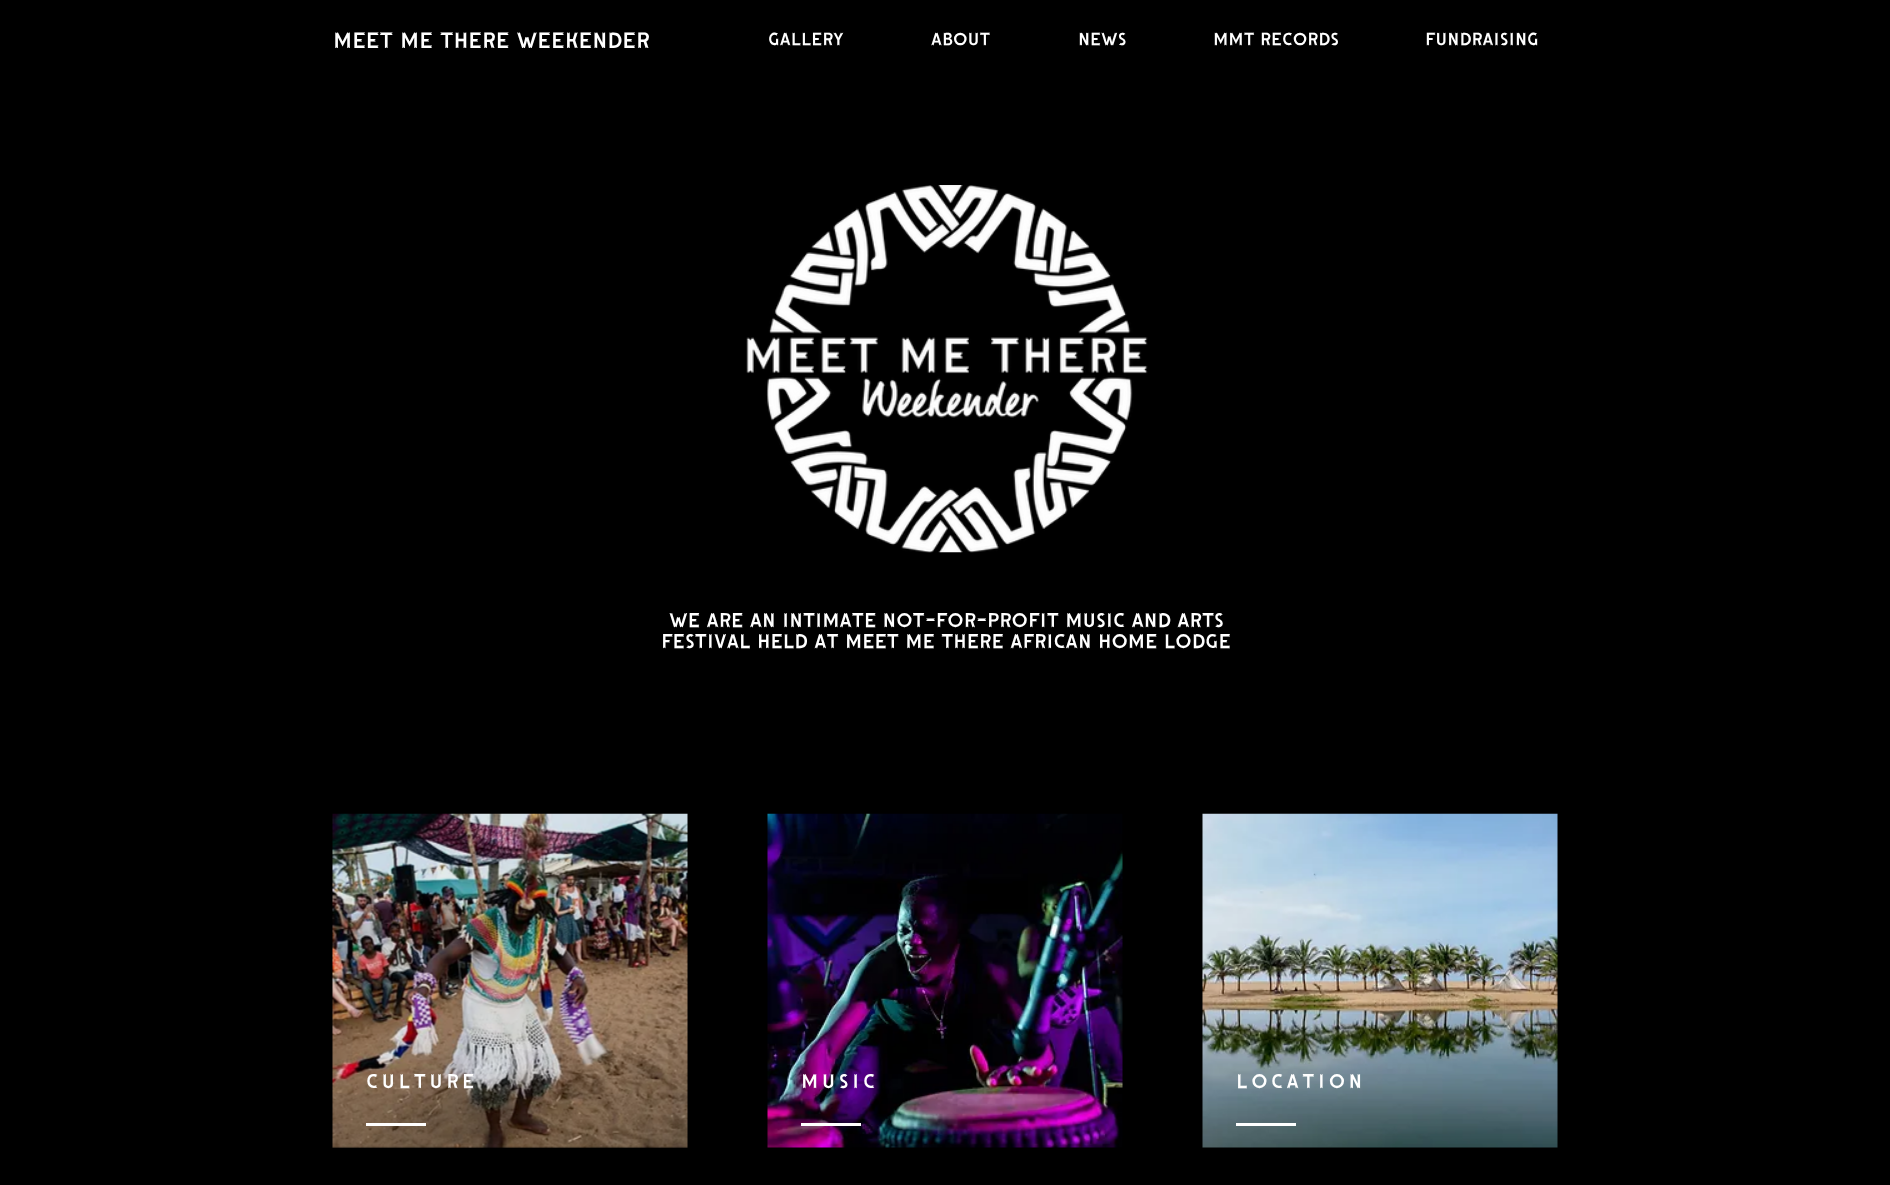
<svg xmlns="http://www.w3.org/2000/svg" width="1890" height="1185">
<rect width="100%" height="100%" fill="#000"/>
<text x="333" y="49" style="font-family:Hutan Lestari;font-size:25px;fill:#fff">MEET ME THERE WEEKENDER</text>
<text x="768" y="46" style="font-family:Hutan Lestari;font-size:20px;fill:#fff">GALLERY</text>
<text x="931" y="46" style="font-family:Hutan Lestari;font-size:20px;fill:#fff">ABOUT</text>
<text x="1078" y="46" style="font-family:Hutan Lestari;font-size:20px;fill:#fff">NEWS</text>
<text x="1213" y="46" style="font-family:Hutan Lestari;font-size:20px;fill:#fff">MMT Records</text>
<text x="1425" y="46" style="font-family:Hutan Lestari;font-size:20px;fill:#fff">FUNDRAISING</text>
<image x="746" y="185" width="402" height="368" href="media/1.png"/>
<text x="669" y="628" style="font-family:Hutan Lestari;font-size:22.5px;fill:#fff">We are an intimate not-for-profit music and arts</text>
<text x="661" y="649" style="font-family:Hutan Lestari;font-size:22.5px;fill:#fff">festival held at Meet Me There African Home Lodge</text>
<image x="332" y="813" width="356" height="335" href="media/2.png"/>
<text x="366" y="1089" style="font-family:Hutan Lestari;font-size:22.5px;letter-spacing:3.5px;fill:#fff">CULTURE</text>
<rect x="366" y="1123" width="60" height="3" fill="#fff"/>
<image x="767" y="813" width="356" height="335" href="media/3.png"/>
<text x="801" y="1089" style="font-family:Hutan Lestari;font-size:22.5px;letter-spacing:3.5px;fill:#fff">MUSIC</text>
<rect x="801" y="1123" width="60" height="3" fill="#fff"/>
<image x="1202" y="813" width="356" height="335" href="media/4.png"/>
<text x="1236" y="1089" style="font-family:Hutan Lestari;font-size:22.5px;letter-spacing:3.5px;fill:#fff">LOCATION</text>
<rect x="1236" y="1123" width="60" height="3" fill="#fff"/>
</svg>
